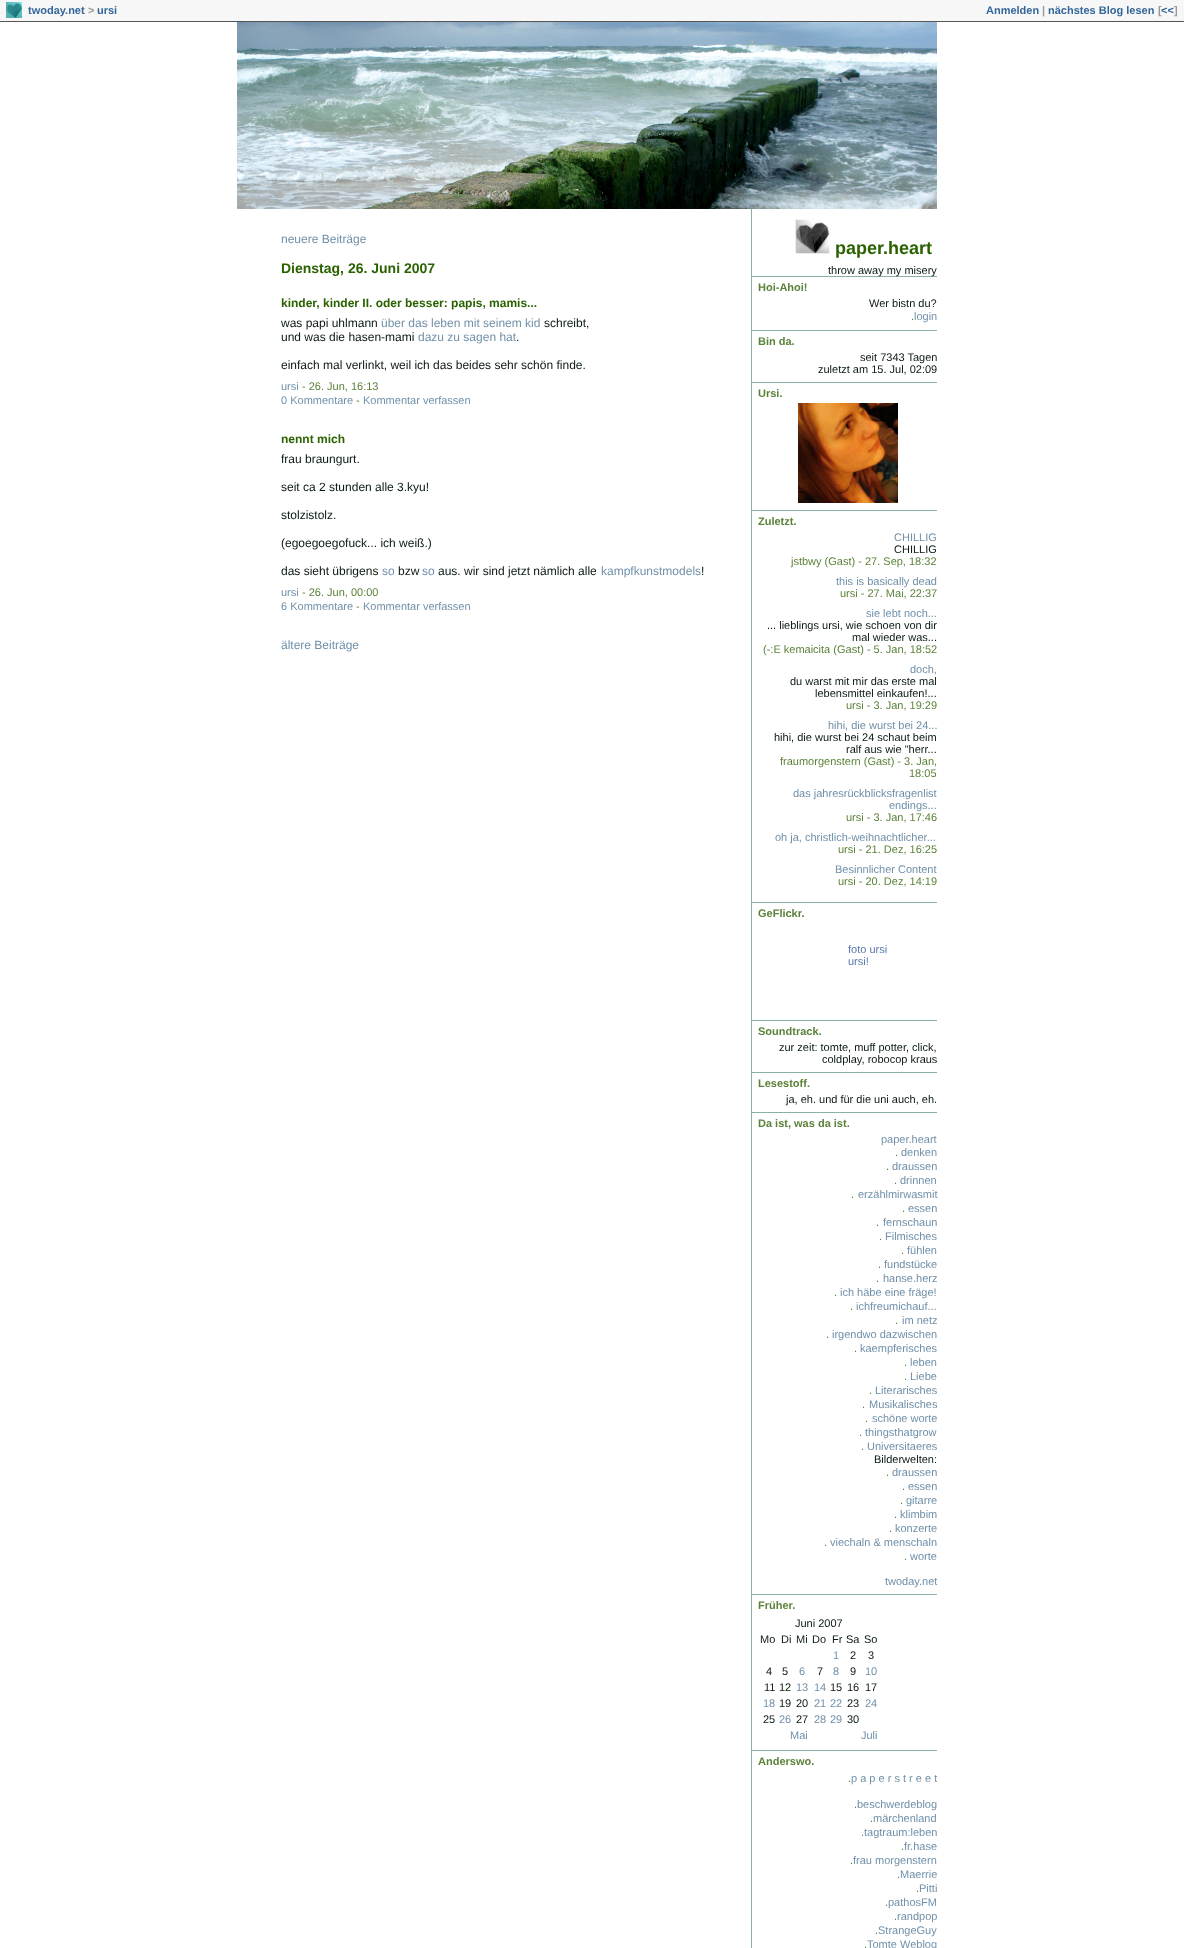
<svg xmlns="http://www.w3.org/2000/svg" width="1184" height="1948">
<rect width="100%" height="100%" fill="#fff"/>
<rect width="1184" height="21" fill="#f7f7f7"/>
<rect y="21" width="1184" height="1" fill="#555"/>
<image x="6" y="2" width="16" height="16" href="media/1.png"/>
<text x="28" y="14" style="font-family:Liberation Sans;font-size:11px;font-weight:bold;fill:#369">twoday.net</text>
<text x="88" y="14" style="font-family:Liberation Sans;font-size:11px;font-weight:bold;fill:#999">&gt;</text>
<text x="97" y="14" style="font-family:Liberation Sans;font-size:11px;font-weight:bold;fill:#369">ursi</text>
<text x="986" y="14" style="font-family:Liberation Sans;font-size:11px;font-weight:bold;fill:#369">Anmelden</text>
<text x="1042" y="14" style="font-family:Liberation Sans;font-size:11px;font-weight:bold;fill:#999">|</text>
<text x="1048" y="14" style="font-family:Liberation Sans;font-size:11px;font-weight:bold;fill:#369">nächstes Blog lesen</text>
<text x="1158" y="14" style="font-family:Liberation Sans;font-size:11px;font-weight:bold;fill:#999">[</text>
<text x="1161" y="14" style="font-family:Liberation Sans;font-size:11px;font-weight:bold;fill:#369">&lt;&lt;</text>
<text x="1174" y="14" style="font-family:Liberation Sans;font-size:11px;font-weight:bold;fill:#999">]</text>
<image x="237" y="22" width="700" height="187" href="media/2.png"/>
<text x="281" y="243" style="font-family:Liberation Sans;font-size:12px;fill:#7090a9">neuere Beiträge</text>
<text x="281" y="273" style="font-family:Liberation Sans;font-size:14px;font-weight:bold;fill:#2a6200">Dienstag, 26. Juni 2007</text>
<text x="281" y="307" style="font-family:Liberation Sans;font-size:12px;font-weight:bold;fill:#2a6200">kinder, kinder II. oder besser: papis, mamis...</text>
<text x="281" y="327" style="font-family:Liberation Sans;font-size:12px;fill:#0a1912">was papi uhlmann</text>
<text x="381" y="327" style="font-family:Liberation Sans;font-size:12px;fill:#7090a9">über das leben mit seinem kid</text>
<text x="544" y="327" style="font-family:Liberation Sans;font-size:12px;fill:#0a1912">schreibt,</text>
<text x="281" y="341" style="font-family:Liberation Sans;font-size:12px;fill:#0a1912">und was die hasen-mami</text>
<text x="418" y="341" style="font-family:Liberation Sans;font-size:12px;fill:#7090a9">dazu zu sagen hat</text>
<text x="516" y="341" style="font-family:Liberation Sans;font-size:12px;fill:#0a1912">.</text>
<text x="281" y="369" style="font-family:Liberation Sans;font-size:12px;fill:#0a1912">einfach mal verlinkt, weil ich das beides sehr schön finde.</text>
<text x="281" y="390" style="font-family:Liberation Sans;font-size:11px;fill:#7090a9">ursi</text>
<text x="302" y="390" style="font-family:Liberation Sans;font-size:11px;fill:#5c8239">- 26. Jun, 16:13</text>
<text x="281" y="404" style="font-family:Liberation Sans;font-size:11px;fill:#7090a9">0 Kommentare</text>
<text x="356" y="404" style="font-family:Liberation Sans;font-size:11px;fill:#5c8239">-</text>
<text x="363" y="404" style="font-family:Liberation Sans;font-size:11px;fill:#7090a9">Kommentar verfassen</text>
<text x="281" y="443" style="font-family:Liberation Sans;font-size:12px;font-weight:bold;fill:#2a6200">nennt mich</text>
<text x="281" y="463" style="font-family:Liberation Sans;font-size:12px;fill:#0a1912">frau braungurt.</text>
<text x="281" y="491" style="font-family:Liberation Sans;font-size:12px;fill:#0a1912">seit ca 2 stunden alle 3.kyu!</text>
<text x="281" y="519" style="font-family:Liberation Sans;font-size:12px;fill:#0a1912">stolzistolz.</text>
<text x="281" y="547" style="font-family:Liberation Sans;font-size:12px;fill:#0a1912">(egoegoegofuck... ich weiß.)</text>
<text x="281" y="575" style="font-family:Liberation Sans;font-size:12px;fill:#0a1912">das sieht übrigens</text>
<text x="382" y="575" style="font-family:Liberation Sans;font-size:12px;fill:#7090a9">so</text>
<text x="398" y="575" style="font-family:Liberation Sans;font-size:12px;fill:#0a1912">bzw</text>
<text x="422" y="575" style="font-family:Liberation Sans;font-size:12px;fill:#7090a9">so</text>
<text x="438" y="575" style="font-family:Liberation Sans;font-size:12px;fill:#0a1912">aus. wir sind jetzt nämlich alle</text>
<text x="601" y="575" style="font-family:Liberation Sans;font-size:12px;fill:#7090a9">kampfkunstmodels</text>
<text x="701" y="575" style="font-family:Liberation Sans;font-size:12px;fill:#0a1912">!</text>
<text x="281" y="596" style="font-family:Liberation Sans;font-size:11px;fill:#7090a9">ursi</text>
<text x="302" y="596" style="font-family:Liberation Sans;font-size:11px;fill:#5c8239">- 26. Jun, 00:00</text>
<text x="281" y="610" style="font-family:Liberation Sans;font-size:11px;fill:#7090a9">6 Kommentare</text>
<text x="356" y="610" style="font-family:Liberation Sans;font-size:11px;fill:#5c8239">-</text>
<text x="363" y="610" style="font-family:Liberation Sans;font-size:11px;fill:#7090a9">Kommentar verfassen</text>
<text x="281" y="649" style="font-family:Liberation Sans;font-size:12px;fill:#7090a9">ältere Beiträge</text>
<rect x="751" y="209" width="1" height="1739" fill="#8bb1a4"/>
<rect x="752" y="276" width="185" height="1" fill="#8bb1a4"/>
<image x="795" y="219" width="35" height="35" href="media/3.png"/>
<text x="835" y="254" style="font-family:Liberation Sans;font-size:18px;font-weight:bold;fill:#2a6200">paper.heart</text>
<text x="828" y="274" style="font-family:Liberation Sans;font-size:11px;fill:#0a1912">throw away my misery</text>
<rect x="752" y="330" width="185" height="1" fill="#8bb1a4"/>
<text x="758" y="291" style="font-family:Liberation Sans;font-size:11px;font-weight:bold;fill:#5c8239">Hoi-Ahoi!</text>
<text x="869" y="307" style="font-family:Liberation Sans;font-size:11px;fill:#0a1912">Wer bistn du?</text>
<text x="911" y="320" style="font-family:Liberation Sans;font-size:11px;fill:#5c8239">.</text>
<text x="914" y="320" style="font-family:Liberation Sans;font-size:11px;fill:#7090a9">login</text>
<rect x="752" y="382" width="185" height="1" fill="#8bb1a4"/>
<text x="758" y="345" style="font-family:Liberation Sans;font-size:11px;font-weight:bold;fill:#5c8239">Bin da.</text>
<text x="860" y="361" style="font-family:Liberation Sans;font-size:11px;fill:#0a1912">seit 7343 Tagen</text>
<text x="818" y="373" style="font-family:Liberation Sans;font-size:11px;fill:#0a1912">zuletzt am 15. Jul, 02:09</text>
<rect x="752" y="510" width="185" height="1" fill="#8bb1a4"/>
<text x="758" y="397" style="font-family:Liberation Sans;font-size:11px;font-weight:bold;fill:#5c8239">Ursi.</text>
<image x="798" y="403" width="100" height="100" href="media/4.png"/>
<rect x="752" y="902" width="185" height="1" fill="#8bb1a4"/>
<text x="758" y="525" style="font-family:Liberation Sans;font-size:11px;font-weight:bold;fill:#5c8239">Zuletzt.</text>
<text x="894" y="541" style="font-family:Liberation Sans;font-size:11px;fill:#7090a9">CHILLIG</text>
<text x="894" y="553" style="font-family:Liberation Sans;font-size:11px;fill:#0a1912">CHILLIG</text>
<text x="791" y="565" style="font-family:Liberation Sans;font-size:11px;fill:#5c8239">jstbwy (Gast) - 27. Sep, 18:32</text>
<text x="836" y="585" style="font-family:Liberation Sans;font-size:11px;fill:#7090a9">this is basically dead</text>
<text x="840" y="597" style="font-family:Liberation Sans;font-size:11px;fill:#5c8239">ursi - 27. Mai, 22:37</text>
<text x="866" y="617" style="font-family:Liberation Sans;font-size:11px;fill:#7090a9">sie lebt noch...</text>
<text x="767" y="629" style="font-family:Liberation Sans;font-size:11px;fill:#0a1912">... lieblings ursi, wie schoen von dir</text>
<text x="852" y="641" style="font-family:Liberation Sans;font-size:11px;fill:#0a1912">mal wieder was...</text>
<text x="763" y="653" style="font-family:Liberation Sans;font-size:11px;fill:#5c8239">(-:E kemaicita (Gast) - 5. Jan, 18:52</text>
<text x="910" y="673" style="font-family:Liberation Sans;font-size:11px;fill:#7090a9">doch,</text>
<text x="790" y="685" style="font-family:Liberation Sans;font-size:11px;fill:#0a1912">du warst mit mir das erste mal</text>
<text x="815" y="697" style="font-family:Liberation Sans;font-size:11px;fill:#0a1912">lebensmittel einkaufen!...</text>
<text x="846" y="709" style="font-family:Liberation Sans;font-size:11px;fill:#5c8239">ursi - 3. Jan, 19:29</text>
<text x="828" y="729" style="font-family:Liberation Sans;font-size:11px;fill:#7090a9">hihi, die wurst bei 24...</text>
<text x="774" y="741" style="font-family:Liberation Sans;font-size:11px;fill:#0a1912">hihi, die wurst bei 24 schaut beim</text>
<text x="846" y="753" style="font-family:Liberation Sans;font-size:11px;fill:#0a1912">ralf aus wie "herr...</text>
<text x="780" y="765" style="font-family:Liberation Sans;font-size:11px;fill:#5c8239">fraumorgenstern (Gast) - 3. Jan,</text>
<text x="909" y="777" style="font-family:Liberation Sans;font-size:11px;fill:#5c8239">18:05</text>
<text x="793" y="797" style="font-family:Liberation Sans;font-size:11px;fill:#7090a9">das jahresrückblicksfragenlist</text>
<text x="889" y="809" style="font-family:Liberation Sans;font-size:11px;fill:#7090a9">endings...</text>
<text x="846" y="821" style="font-family:Liberation Sans;font-size:11px;fill:#5c8239">ursi - 3. Jan, 17:46</text>
<text x="775" y="841" style="font-family:Liberation Sans;font-size:11px;fill:#7090a9">oh ja, christlich-weihnachtlicher...</text>
<text x="838" y="853" style="font-family:Liberation Sans;font-size:11px;fill:#5c8239">ursi - 21. Dez, 16:25</text>
<text x="835" y="873" style="font-family:Liberation Sans;font-size:11px;fill:#7090a9">Besinnlicher Content</text>
<text x="838" y="885" style="font-family:Liberation Sans;font-size:11px;fill:#5c8239">ursi - 20. Dez, 14:19</text>
<rect x="752" y="1020" width="185" height="1" fill="#8bb1a4"/>
<text x="758" y="917" style="font-family:Liberation Sans;font-size:11px;font-weight:bold;fill:#5c8239">GeFlickr.</text>
<text x="848" y="953" style="font-family:Liberation Sans;font-size:11px;fill:#5979aa">foto ursi</text>
<text x="848" y="965" style="font-family:Liberation Sans;font-size:11px;fill:#5979aa">ursi!</text>
<rect x="752" y="1072" width="185" height="1" fill="#8bb1a4"/>
<text x="758" y="1035" style="font-family:Liberation Sans;font-size:11px;font-weight:bold;fill:#5c8239">Soundtrack.</text>
<text x="779" y="1051" style="font-family:Liberation Sans;font-size:11px;fill:#0a1912">zur zeit: tomte, muff potter, click,</text>
<text x="822" y="1063" style="font-family:Liberation Sans;font-size:11px;fill:#0a1912">coldplay, robocop kraus</text>
<rect x="752" y="1112" width="185" height="1" fill="#8bb1a4"/>
<text x="758" y="1087" style="font-family:Liberation Sans;font-size:11px;font-weight:bold;fill:#5c8239">Lesestoff.</text>
<text x="786" y="1103" style="font-family:Liberation Sans;font-size:11px;fill:#0a1912">ja, eh. und für die uni auch, eh.</text>
<rect x="752" y="1594" width="185" height="1" fill="#8bb1a4"/>
<text x="758" y="1127" style="font-family:Liberation Sans;font-size:11px;font-weight:bold;fill:#5c8239">Da ist, was da ist.</text>
<text x="881" y="1143" style="font-family:Liberation Sans;font-size:11px;fill:#7090a9">paper.heart</text>
<text x="895" y="1156" style="font-family:Liberation Sans;font-size:11px;fill:#5c8239">.</text>
<text x="901" y="1156" style="font-family:Liberation Sans;font-size:11px;fill:#7090a9">denken</text>
<text x="886" y="1170" style="font-family:Liberation Sans;font-size:11px;fill:#5c8239">.</text>
<text x="892" y="1170" style="font-family:Liberation Sans;font-size:11px;fill:#7090a9">draussen</text>
<text x="894" y="1184" style="font-family:Liberation Sans;font-size:11px;fill:#5c8239">.</text>
<text x="900" y="1184" style="font-family:Liberation Sans;font-size:11px;fill:#7090a9">drinnen</text>
<text x="851" y="1198" style="font-family:Liberation Sans;font-size:11px;fill:#5c8239">.</text>
<text x="858" y="1198" style="font-family:Liberation Sans;font-size:11px;fill:#7090a9">erzählmirwasmit</text>
<text x="902" y="1212" style="font-family:Liberation Sans;font-size:11px;fill:#5c8239">.</text>
<text x="908" y="1212" style="font-family:Liberation Sans;font-size:11px;fill:#7090a9">essen</text>
<text x="876" y="1226" style="font-family:Liberation Sans;font-size:11px;fill:#5c8239">.</text>
<text x="883" y="1226" style="font-family:Liberation Sans;font-size:11px;fill:#7090a9">fernschaun</text>
<text x="879" y="1240" style="font-family:Liberation Sans;font-size:11px;fill:#5c8239">.</text>
<text x="885" y="1240" style="font-family:Liberation Sans;font-size:11px;fill:#7090a9">Filmisches</text>
<text x="901" y="1254" style="font-family:Liberation Sans;font-size:11px;fill:#5c8239">.</text>
<text x="907" y="1254" style="font-family:Liberation Sans;font-size:11px;fill:#7090a9">fühlen</text>
<text x="878" y="1268" style="font-family:Liberation Sans;font-size:11px;fill:#5c8239">.</text>
<text x="884" y="1268" style="font-family:Liberation Sans;font-size:11px;fill:#7090a9">fundstücke</text>
<text x="876" y="1282" style="font-family:Liberation Sans;font-size:11px;fill:#5c8239">.</text>
<text x="883" y="1282" style="font-family:Liberation Sans;font-size:11px;fill:#7090a9">hanse.herz</text>
<text x="834" y="1296" style="font-family:Liberation Sans;font-size:11px;fill:#5c8239">.</text>
<text x="840" y="1296" style="font-family:Liberation Sans;font-size:11px;fill:#7090a9">ich häbe eine fräge!</text>
<text x="850" y="1310" style="font-family:Liberation Sans;font-size:11px;fill:#5c8239">.</text>
<text x="856" y="1310" style="font-family:Liberation Sans;font-size:11px;fill:#7090a9">ichfreumichauf...</text>
<text x="895" y="1324" style="font-family:Liberation Sans;font-size:11px;fill:#5c8239">.</text>
<text x="902" y="1324" style="font-family:Liberation Sans;font-size:11px;fill:#7090a9">im netz</text>
<text x="826" y="1338" style="font-family:Liberation Sans;font-size:11px;fill:#5c8239">.</text>
<text x="832" y="1338" style="font-family:Liberation Sans;font-size:11px;fill:#7090a9">irgendwo dazwischen</text>
<text x="854" y="1352" style="font-family:Liberation Sans;font-size:11px;fill:#5c8239">.</text>
<text x="860" y="1352" style="font-family:Liberation Sans;font-size:11px;fill:#7090a9">kaempferisches</text>
<text x="904" y="1366" style="font-family:Liberation Sans;font-size:11px;fill:#5c8239">.</text>
<text x="910" y="1366" style="font-family:Liberation Sans;font-size:11px;fill:#7090a9">leben</text>
<text x="904" y="1380" style="font-family:Liberation Sans;font-size:11px;fill:#5c8239">.</text>
<text x="910" y="1380" style="font-family:Liberation Sans;font-size:11px;fill:#7090a9">Liebe</text>
<text x="869" y="1394" style="font-family:Liberation Sans;font-size:11px;fill:#5c8239">.</text>
<text x="875" y="1394" style="font-family:Liberation Sans;font-size:11px;fill:#7090a9">Literarisches</text>
<text x="862" y="1408" style="font-family:Liberation Sans;font-size:11px;fill:#5c8239">.</text>
<text x="869" y="1408" style="font-family:Liberation Sans;font-size:11px;fill:#7090a9">Musikalisches</text>
<text x="865" y="1422" style="font-family:Liberation Sans;font-size:11px;fill:#5c8239">.</text>
<text x="872" y="1422" style="font-family:Liberation Sans;font-size:11px;fill:#7090a9">schöne worte</text>
<text x="859" y="1436" style="font-family:Liberation Sans;font-size:11px;fill:#5c8239">.</text>
<text x="865" y="1436" style="font-family:Liberation Sans;font-size:11px;fill:#7090a9">thingsthatgrow</text>
<text x="861" y="1450" style="font-family:Liberation Sans;font-size:11px;fill:#5c8239">.</text>
<text x="867" y="1450" style="font-family:Liberation Sans;font-size:11px;fill:#7090a9">Universitaeres</text>
<text x="874" y="1463" style="font-family:Liberation Sans;font-size:11px;fill:#0a1912">Bilderwelten:</text>
<text x="886" y="1476" style="font-family:Liberation Sans;font-size:11px;fill:#5c8239">.</text>
<text x="892" y="1476" style="font-family:Liberation Sans;font-size:11px;fill:#7090a9">draussen</text>
<text x="902" y="1490" style="font-family:Liberation Sans;font-size:11px;fill:#5c8239">.</text>
<text x="908" y="1490" style="font-family:Liberation Sans;font-size:11px;fill:#7090a9">essen</text>
<text x="900" y="1504" style="font-family:Liberation Sans;font-size:11px;fill:#5c8239">.</text>
<text x="906" y="1504" style="font-family:Liberation Sans;font-size:11px;fill:#7090a9">gitarre</text>
<text x="894" y="1518" style="font-family:Liberation Sans;font-size:11px;fill:#5c8239">.</text>
<text x="900" y="1518" style="font-family:Liberation Sans;font-size:11px;fill:#7090a9">klimbim</text>
<text x="889" y="1532" style="font-family:Liberation Sans;font-size:11px;fill:#5c8239">.</text>
<text x="895" y="1532" style="font-family:Liberation Sans;font-size:11px;fill:#7090a9">konzerte</text>
<text x="824" y="1546" style="font-family:Liberation Sans;font-size:11px;fill:#5c8239">.</text>
<text x="830" y="1546" style="font-family:Liberation Sans;font-size:11px;fill:#7090a9">viechaln &amp; menschaln</text>
<text x="904" y="1560" style="font-family:Liberation Sans;font-size:11px;fill:#5c8239">.</text>
<text x="910" y="1560" style="font-family:Liberation Sans;font-size:11px;fill:#7090a9">worte</text>
<text x="885" y="1585" style="font-family:Liberation Sans;font-size:11px;fill:#7090a9">twoday.net</text>
<rect x="752" y="1750" width="185" height="1" fill="#8bb1a4"/>
<text x="758" y="1609" style="font-family:Liberation Sans;font-size:11px;font-weight:bold;fill:#5c8239">Früher.</text>
<text x="795" y="1627" style="font-family:Liberation Sans;font-size:11px;fill:#0a1912">Juni 2007</text>
<text x="760" y="1643" style="font-family:Liberation Sans;font-size:11px;fill:#0a1912">Mo</text>
<text x="781" y="1643" style="font-family:Liberation Sans;font-size:11px;fill:#0a1912">Di</text>
<text x="796" y="1643" style="font-family:Liberation Sans;font-size:11px;fill:#0a1912">Mi</text>
<text x="812" y="1643" style="font-family:Liberation Sans;font-size:11px;fill:#0a1912">Do</text>
<text x="832" y="1643" style="font-family:Liberation Sans;font-size:11px;fill:#0a1912">Fr</text>
<text x="846" y="1643" style="font-family:Liberation Sans;font-size:11px;fill:#0a1912">Sa</text>
<text x="864" y="1643" style="font-family:Liberation Sans;font-size:11px;fill:#0a1912">So</text>
<text x="833" y="1659" style="font-family:Liberation Sans;font-size:11px;fill:#7090a9">1</text>
<text x="850" y="1659" style="font-family:Liberation Sans;font-size:11px;fill:#0a1912">2</text>
<text x="868" y="1659" style="font-family:Liberation Sans;font-size:11px;fill:#0a1912">3</text>
<text x="766" y="1675" style="font-family:Liberation Sans;font-size:11px;fill:#0a1912">4</text>
<text x="782" y="1675" style="font-family:Liberation Sans;font-size:11px;fill:#0a1912">5</text>
<text x="799" y="1675" style="font-family:Liberation Sans;font-size:11px;fill:#7090a9">6</text>
<text x="817" y="1675" style="font-family:Liberation Sans;font-size:11px;fill:#0a1912">7</text>
<text x="833" y="1675" style="font-family:Liberation Sans;font-size:11px;fill:#7090a9">8</text>
<text x="850" y="1675" style="font-family:Liberation Sans;font-size:11px;fill:#0a1912">9</text>
<text x="865" y="1675" style="font-family:Liberation Sans;font-size:11px;fill:#7090a9">10</text>
<text x="764" y="1691" style="font-family:Liberation Sans;font-size:11px;fill:#0a1912">11</text>
<text x="779" y="1691" style="font-family:Liberation Sans;font-size:11px;fill:#0a1912">12</text>
<text x="796" y="1691" style="font-family:Liberation Sans;font-size:11px;fill:#7090a9">13</text>
<text x="814" y="1691" style="font-family:Liberation Sans;font-size:11px;fill:#7090a9">14</text>
<text x="830" y="1691" style="font-family:Liberation Sans;font-size:11px;fill:#0a1912">15</text>
<text x="847" y="1691" style="font-family:Liberation Sans;font-size:11px;fill:#0a1912">16</text>
<text x="865" y="1691" style="font-family:Liberation Sans;font-size:11px;fill:#0a1912">17</text>
<text x="763" y="1707" style="font-family:Liberation Sans;font-size:11px;fill:#7090a9">18</text>
<text x="779" y="1707" style="font-family:Liberation Sans;font-size:11px;fill:#0a1912">19</text>
<text x="796" y="1707" style="font-family:Liberation Sans;font-size:11px;fill:#0a1912">20</text>
<text x="814" y="1707" style="font-family:Liberation Sans;font-size:11px;fill:#7090a9">21</text>
<text x="830" y="1707" style="font-family:Liberation Sans;font-size:11px;fill:#7090a9">22</text>
<text x="847" y="1707" style="font-family:Liberation Sans;font-size:11px;fill:#0a1912">23</text>
<text x="865" y="1707" style="font-family:Liberation Sans;font-size:11px;fill:#7090a9">24</text>
<text x="763" y="1723" style="font-family:Liberation Sans;font-size:11px;fill:#0a1912">25</text>
<text x="779" y="1723" style="font-family:Liberation Sans;font-size:11px;fill:#7090a9">26</text>
<text x="796" y="1723" style="font-family:Liberation Sans;font-size:11px;fill:#0a1912">27</text>
<text x="814" y="1723" style="font-family:Liberation Sans;font-size:11px;fill:#7090a9">28</text>
<text x="830" y="1723" style="font-family:Liberation Sans;font-size:11px;fill:#7090a9">29</text>
<text x="847" y="1723" style="font-family:Liberation Sans;font-size:11px;fill:#0a1912">30</text>
<text x="790" y="1739" style="font-family:Liberation Sans;font-size:11px;fill:#7090a9">Mai</text>
<text x="861" y="1739" style="font-family:Liberation Sans;font-size:11px;fill:#7090a9">Juli</text>
<text x="758" y="1765" style="font-family:Liberation Sans;font-size:11px;font-weight:bold;fill:#5c8239">Anderswo.</text>
<text x="848" y="1782" style="font-family:Liberation Sans;font-size:11px;fill:#5c8239">.</text>
<text x="851" y="1782" style="font-family:Liberation Sans;font-size:11px;fill:#7090a9">p a p e r s t r e e t</text>
<text x="854" y="1808" style="font-family:Liberation Sans;font-size:11px;fill:#5c8239">.</text>
<text x="857" y="1808" style="font-family:Liberation Sans;font-size:11px;fill:#7090a9">beschwerdeblog</text>
<text x="870" y="1822" style="font-family:Liberation Sans;font-size:11px;fill:#5c8239">.</text>
<text x="873" y="1822" style="font-family:Liberation Sans;font-size:11px;fill:#7090a9">märchenland</text>
<text x="861" y="1836" style="font-family:Liberation Sans;font-size:11px;fill:#5c8239">.</text>
<text x="864" y="1836" style="font-family:Liberation Sans;font-size:11px;fill:#7090a9">tagtraum:leben</text>
<text x="901" y="1850" style="font-family:Liberation Sans;font-size:11px;fill:#5c8239">.</text>
<text x="904" y="1850" style="font-family:Liberation Sans;font-size:11px;fill:#7090a9">fr.hase</text>
<text x="850" y="1864" style="font-family:Liberation Sans;font-size:11px;fill:#5c8239">.</text>
<text x="853" y="1864" style="font-family:Liberation Sans;font-size:11px;fill:#7090a9">frau morgenstern</text>
<text x="897" y="1878" style="font-family:Liberation Sans;font-size:11px;fill:#5c8239">.</text>
<text x="900" y="1878" style="font-family:Liberation Sans;font-size:11px;fill:#7090a9">Maerrie</text>
<text x="916" y="1892" style="font-family:Liberation Sans;font-size:11px;fill:#5c8239">.</text>
<text x="919" y="1892" style="font-family:Liberation Sans;font-size:11px;fill:#7090a9">Pitti</text>
<text x="885" y="1906" style="font-family:Liberation Sans;font-size:11px;fill:#5c8239">.</text>
<text x="888" y="1906" style="font-family:Liberation Sans;font-size:11px;fill:#7090a9">pathosFM</text>
<text x="894" y="1920" style="font-family:Liberation Sans;font-size:11px;fill:#5c8239">.</text>
<text x="897" y="1920" style="font-family:Liberation Sans;font-size:11px;fill:#7090a9">randpop</text>
<text x="875" y="1934" style="font-family:Liberation Sans;font-size:11px;fill:#5c8239">.</text>
<text x="878" y="1934" style="font-family:Liberation Sans;font-size:11px;fill:#7090a9">StrangeGuy</text>
<text x="864" y="1948" style="font-family:Liberation Sans;font-size:11px;fill:#5c8239">.</text>
<text x="867" y="1948" style="font-family:Liberation Sans;font-size:11px;fill:#7090a9">Tomte Weblog</text>
</svg>
